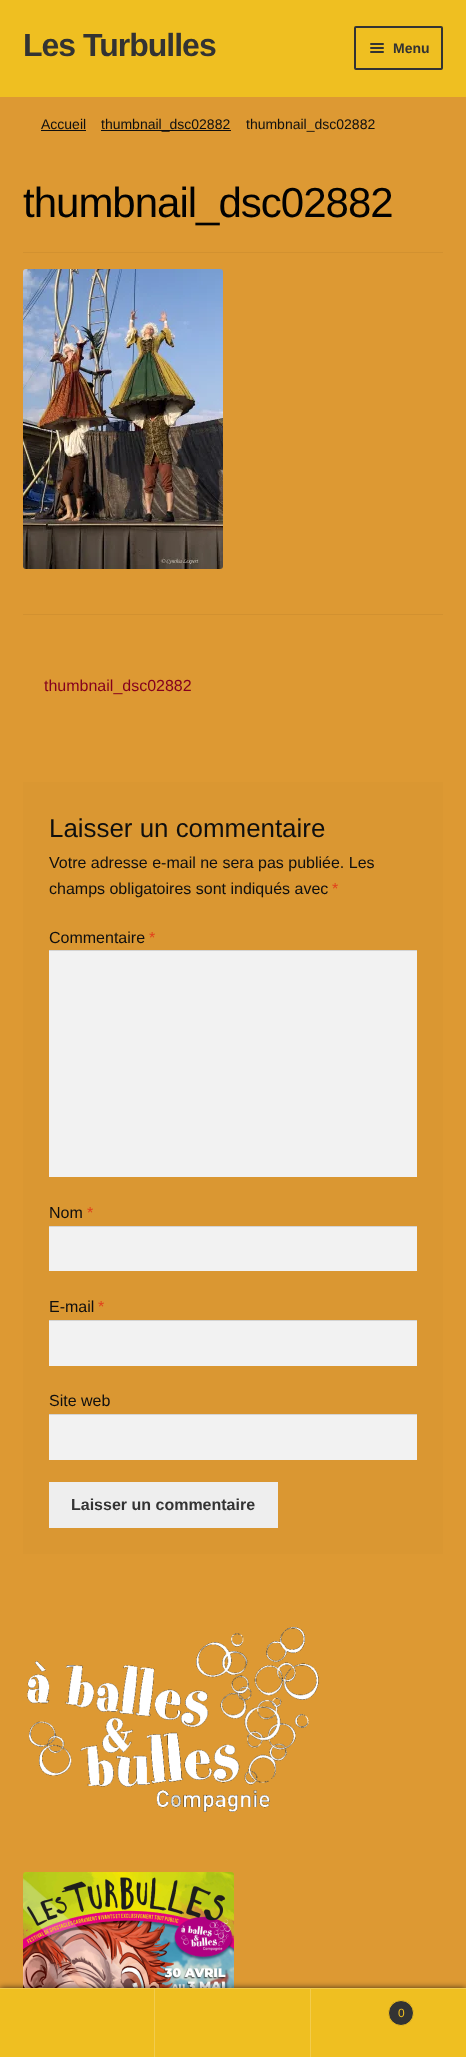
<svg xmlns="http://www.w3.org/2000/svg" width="466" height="2057">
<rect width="100%" height="100%" fill="#d93"/>
<rect width="466" height="97" fill="#efbf21"/>
<text x="23" y="56" style="font-family:Liberation Sans;font-size:32px;font-weight:bold;letter-spacing:-1px;fill:#333">Les Turbulles</text>
<rect x="355" y="27" width="87" height="42" rx="1" fill="none" stroke="#333" stroke-width="2"/>
<rect x="370" y="43" width="14" height="2" rx="1" fill="#333"/>
<rect x="370" y="47" width="14" height="2" rx="1" fill="#333"/>
<text x="393" y="53" style="font-family:Liberation Sans;font-size:14px;font-weight:bold;fill:#333">Menu</text>
<rect x="370" y="51" width="14" height="2" rx="1" fill="#333"/>
<text x="41" y="129" style="font-family:Liberation Sans;font-size:14px;fill:#0f0f0f">Accueil</text>
<rect x="41" y="130" width="45" height="1" fill="#0f0f0f"/>
<rect x="101" y="130" width="130" height="1" fill="#0f0f0f"/>
<text x="101" y="129" style="font-family:Liberation Sans;font-size:14px;fill:#0f0f0f">thumbnail_dsc02882</text>
<text x="246" y="129" style="font-family:Liberation Sans;font-size:14px;fill:#0f0f0f">thumbnail_dsc02882</text>
<rect x="23" y="252" width="420" height="1" fill="#d29130"/>
<text x="23" y="217" style="font-family:Liberation Sans;font-size:42px;letter-spacing:-1px;fill:#020202">thumbnail_dsc02882</text>
<image x="23" y="269" width="200" height="300" href="media/1.png"/>
<rect x="23" y="614" width="420" height="1" fill="#d29130"/>
<text x="44" y="691" style="font-family:Liberation Sans;font-size:16px;fill:#84001e">thumbnail_dsc02882</text>
<rect x="23" y="782" width="420" height="772" fill="#da9732"/>
<text x="49" y="837" style="font-family:Liberation Sans;font-size:25.9px;fill:#0f0f0f">Laisser un commentaire</text>
<text x="49" y="868" style="font-family:Liberation Sans;font-size:16px;fill:#0f0f0f">Votre adresse e-mail ne sera pas publiée. Les</text>
<text x="49" y="894" style="font-family:Liberation Sans;font-size:16px;fill:#0f0f0f">champs obligatoires sont indiqués avec</text>
<text x="332" y="894" style="font-family:Liberation Sans;font-size:16px;fill:#e2401c">*</text>
<text x="49" y="943" style="font-family:Liberation Sans;font-size:16px;fill:#0f0f0f">Commentaire</text>
<text x="149" y="943" style="font-family:Liberation Sans;font-size:16px;fill:#e2401c">*</text>
<rect x="49" y="951" width="368" height="226" fill="#f2f2f2"/>
<rect x="49" y="950" width="368" height="1" fill="#d4d4d4"/>
<text x="49" y="1218" style="font-family:Liberation Sans;font-size:16px;fill:#0f0f0f">Nom</text>
<text x="87" y="1218" style="font-family:Liberation Sans;font-size:16px;fill:#e2401c">*</text>
<rect x="49" y="1227" width="368" height="44" fill="#f2f2f2"/>
<rect x="49" y="1226" width="368" height="1" fill="#d4d4d4"/>
<text x="49" y="1312" style="font-family:Liberation Sans;font-size:16px;fill:#0f0f0f">E-mail</text>
<text x="98" y="1312" style="font-family:Liberation Sans;font-size:16px;fill:#e2401c">*</text>
<rect x="49" y="1321" width="368" height="45" fill="#f2f2f2"/>
<rect x="49" y="1320" width="368" height="1" fill="#d4d4d4"/>
<text x="49" y="1406" style="font-family:Liberation Sans;font-size:16px;fill:#0f0f0f">Site web</text>
<rect x="49" y="1415" width="368" height="45" fill="#f2f2f2"/>
<rect x="49" y="1414" width="368" height="1" fill="#d4d4d4"/>
<rect x="49" y="1482" width="229" height="46" fill="#eee"/>
<text x="71" y="1510" style="font-family:Liberation Sans;font-size:16px;font-weight:bold;fill:#333">Laisser un commentaire</text>
<image x="27" y="1627" width="292" height="185" href="media/2.png"/>
<image x="23" y="1872" width="211" height="116" href="media/3.png"/>
<rect y="1988" width="466" height="69" fill="#000000b3" filter="blur(3px)"/>
<rect y="1988" width="466" height="1" fill="#f2cc4d"/>
<rect y="1989" width="154" height="68" fill="#efbf21"/>
<rect x="154" y="1989" width="1" height="68" fill="#f2cc4d"/>
<rect x="155" y="1989" width="155" height="68" fill="#efbf21"/>
<rect x="310" y="1989" width="1" height="68" fill="#f2cc4d"/>
<rect x="311" y="1989" width="155" height="68" fill="#efbf21"/>
<circle cx="401" cy="2013" r="12.5" fill="#333" stroke="#efbf21"/>
<text x="398" y="2017" style="font-family:Liberation Sans;font-size:12px;fill:#efbf21">0</text>
</svg>
